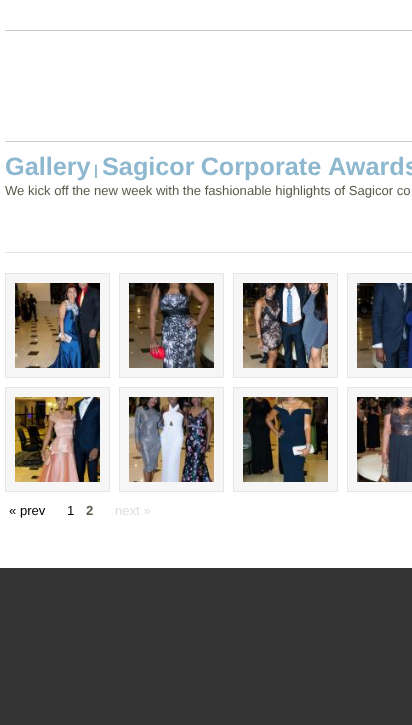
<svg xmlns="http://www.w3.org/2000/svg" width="412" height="725">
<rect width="100%" height="100%" fill="#333"/>
<rect width="412" height="568" fill="#fff"/>
<rect x="5" y="30" width="407" height="1" fill="#ccc"/>
<rect x="5" y="141" width="407" height="1" fill="#ccc"/>
<rect x="5" y="252" width="407" height="1" fill="#e6e6df"/>
<text x="5" y="175" style="font-family:Liberation Sans;font-size:25.25px;font-weight:bold;fill:#8db8cf">Gallery</text>
<text x="94" y="175" style="font-family:Liberation Sans;font-size:14px;font-weight:bold;fill:#8db8cf">|</text>
<text x="102" y="175" word-spacing="-1" style="font-family:Liberation Sans;font-size:25.25px;font-weight:bold;fill:#8db8cf">Sagicor Corporate</text>
<text x="328" y="175" style="font-family:Liberation Sans;font-size:25.25px;font-weight:bold;fill:#8db8cf">Awards</text>
<text x="5" y="195" style="font-family:Liberation Sans;font-size:13.1px;fill:#5a5a4b">We kick off the new week with the fashionable highlights of Sagicor co</text>
<rect x="5.5" y="273.5" width="104" height="104" fill="#f6f6f6" stroke="#e6e6e6"/>
<image x="15" y="283" width="85" height="85" href="media/1.png"/>
<rect x="119.5" y="273.5" width="104" height="104" fill="#f6f6f6" stroke="#e6e6e6"/>
<image x="129" y="283" width="85" height="85" href="media/2.png"/>
<rect x="233.5" y="273.5" width="104" height="104" fill="#f6f6f6" stroke="#e6e6e6"/>
<image x="243" y="283" width="85" height="85" href="media/3.png"/>
<rect x="347.5" y="273.5" width="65" height="104" fill="#f6f6f6" stroke="#e6e6e6"/>
<image x="357" y="283" width="55" height="85" href="media/4.png"/>
<rect x="5.5" y="387.5" width="104" height="104" fill="#f6f6f6" stroke="#e6e6e6"/>
<image x="15" y="397" width="85" height="85" href="media/5.png"/>
<rect x="119.5" y="387.5" width="104" height="104" fill="#f6f6f6" stroke="#e6e6e6"/>
<image x="129" y="397" width="85" height="85" href="media/6.png"/>
<rect x="233.5" y="387.5" width="104" height="104" fill="#f6f6f6" stroke="#e6e6e6"/>
<image x="243" y="397" width="85" height="85" href="media/7.png"/>
<rect x="347.5" y="387.5" width="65" height="104" fill="#f6f6f6" stroke="#e6e6e6"/>
<image x="357" y="397" width="55" height="85" href="media/8.png"/>
<text x="9" y="515" style="font-family:Liberation Sans;font-size:13.1px;fill:#000">« prev</text>
<text x="67" y="515" style="font-family:Liberation Sans;font-size:13.1px;fill:#000">1</text>
<text x="86" y="515" style="font-family:Liberation Sans;font-size:13.1px;font-weight:bold;fill:#5a5a4b">2</text>
<text x="115" y="515" style="font-family:Liberation Sans;font-size:13.1px;fill:#ddd">next »</text>
</svg>
